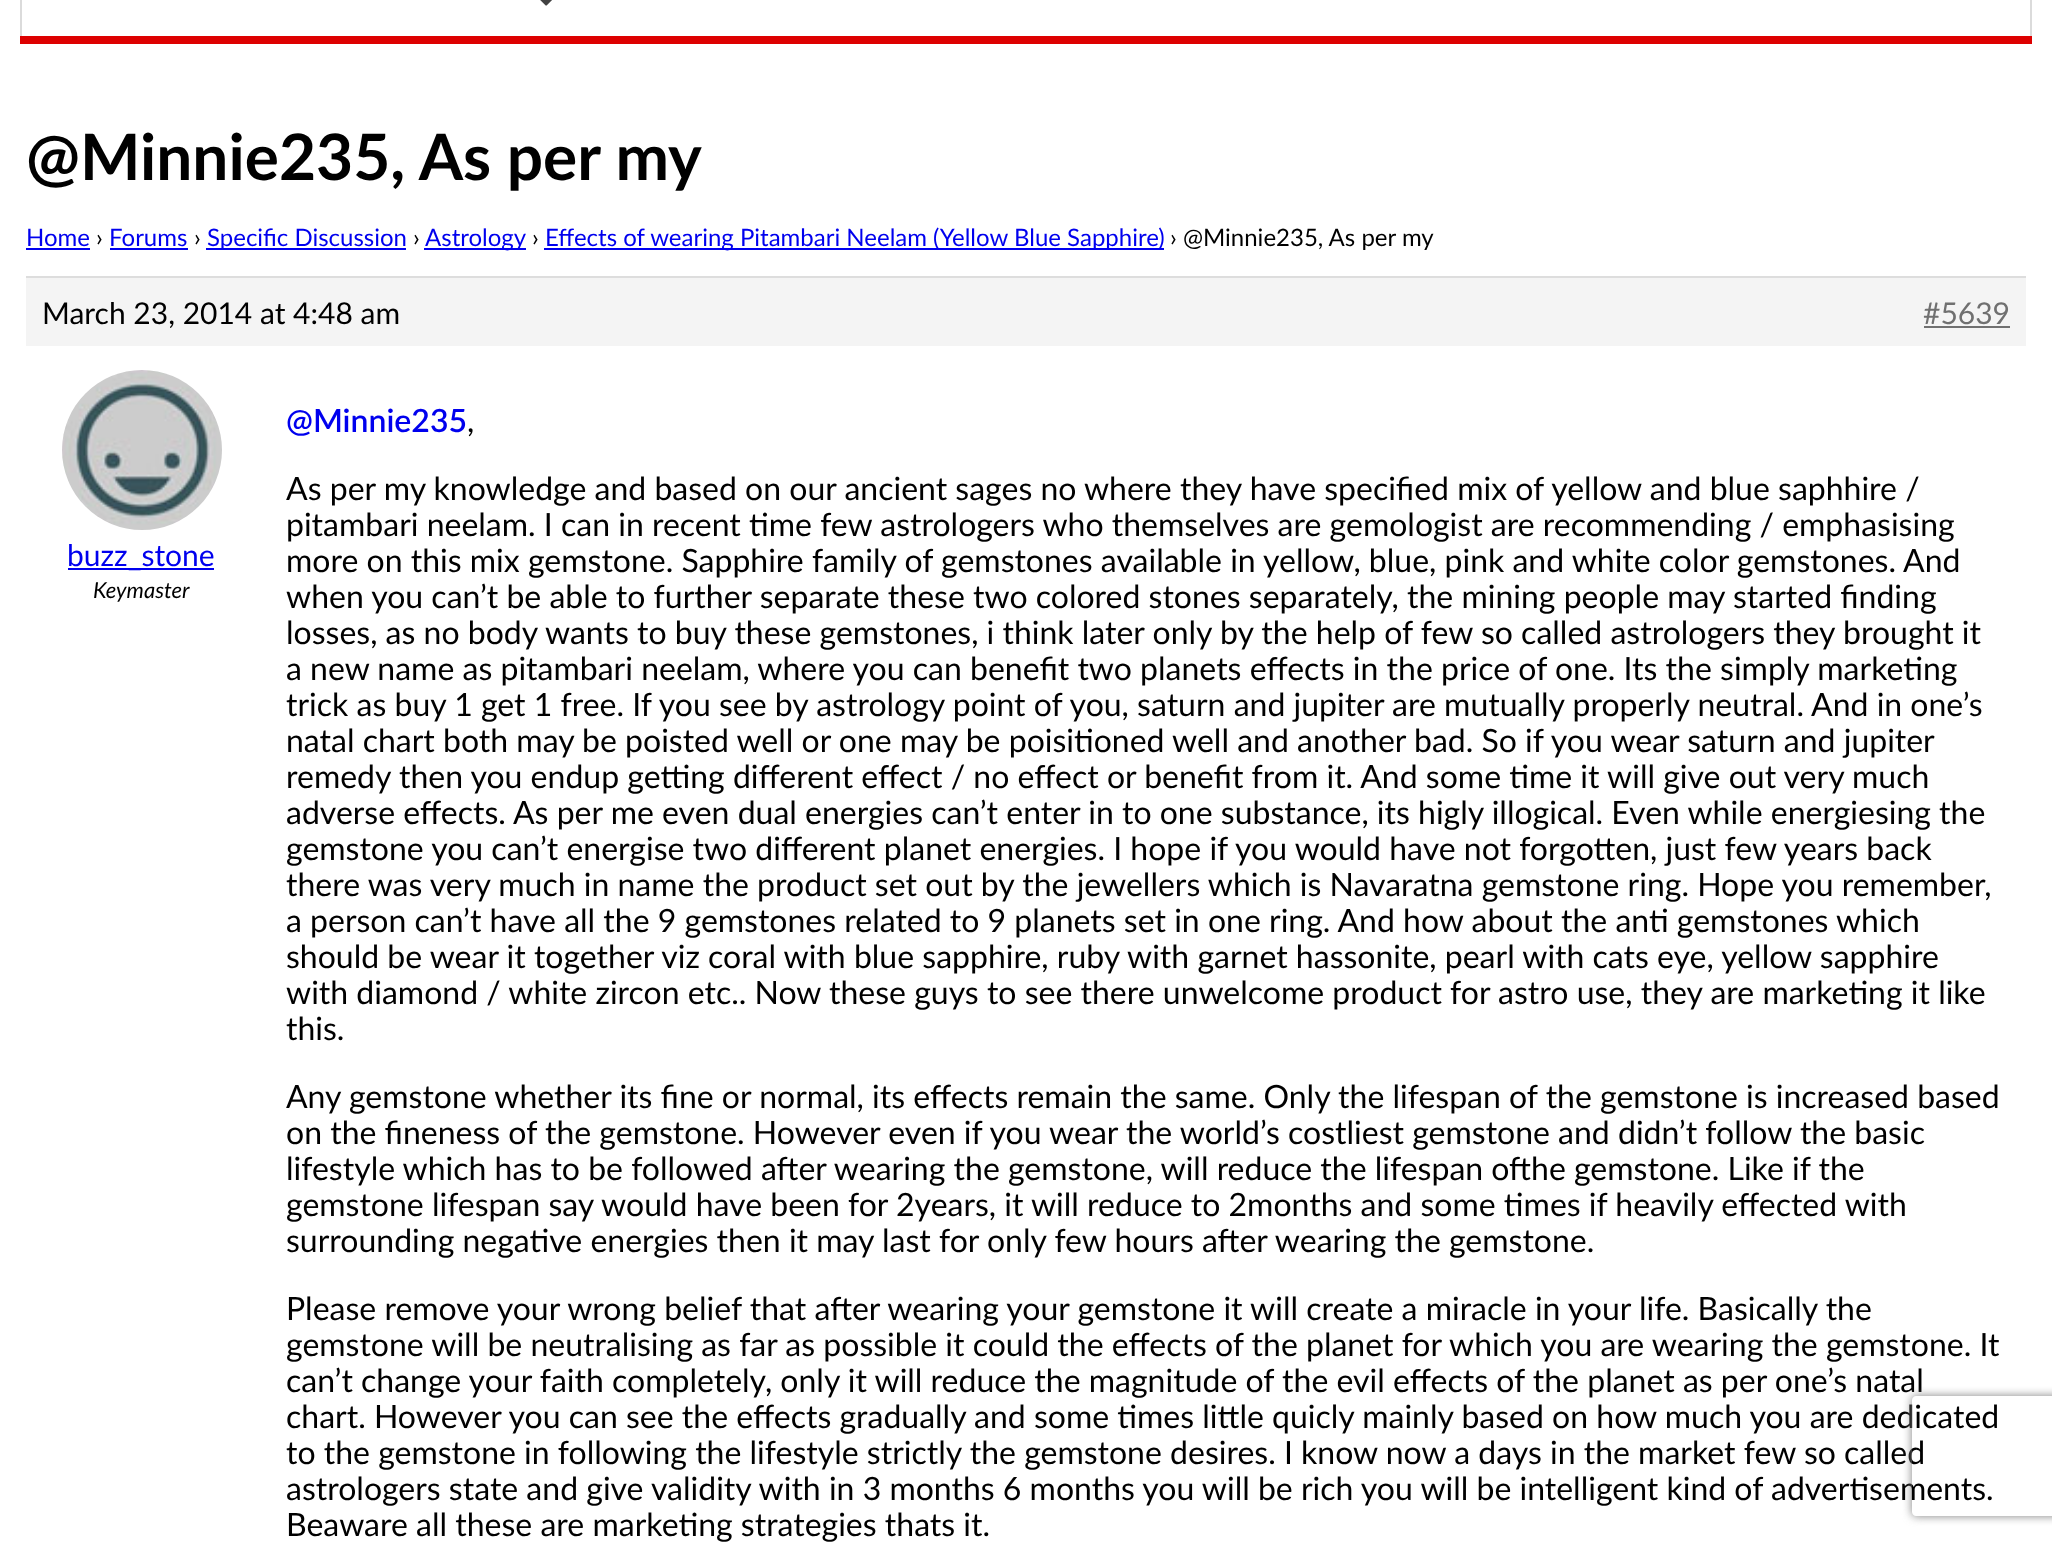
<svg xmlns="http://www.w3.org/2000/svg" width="2052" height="1543">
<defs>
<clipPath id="clip1"><path d="M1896 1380h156v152h-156zm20 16h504c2 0 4 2 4 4v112c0 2-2 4-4 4h-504c-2 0-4-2-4-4v-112c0-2 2-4 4-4z" clip-rule="evenodd"/></clipPath>
</defs>
<rect width="100%" height="100%" fill="#fff"/>
<rect x="20" y="36" width="2012" height="8" fill="#d00"/>
<rect x="2030" width="2" height="36" fill="#dbdbdb"/>
<rect x="20" width="2" height="36" fill="#dbdbdb"/>
<image x="540" y="0" width="12" height="6" href="media/1.png"/>
<text x="26" y="180" style="font-family:Lato;font-size:64px;font-weight:bold;fill:#000">@Minnie235, As per my</text>
<text x="26" y="246" style="font-family:Lato;font-size:24px;fill:#00e">Home</text>
<rect x="26" y="248" width="64" height="2" fill="#00e"/>
<text x="96" y="246" style="font-family:Lato;font-size:24px;fill:#000">›</text>
<text x="109" y="246" style="font-family:Lato;font-size:24px;fill:#00e">Forums</text>
<rect x="110" y="248" width="78" height="2" fill="#00e"/>
<text x="194" y="246" style="font-family:Lato;font-size:24px;fill:#000">›</text>
<rect x="206" y="248" width="200" height="2" fill="#00e"/>
<text x="207" y="246" style="font-family:Lato;font-size:24px;fill:#00e">Specific Discussion</text>
<text x="413" y="246" style="font-family:Lato;font-size:24px;fill:#000">›</text>
<rect x="424" y="248" width="102" height="2" fill="#00e"/>
<text x="425" y="246" style="font-family:Lato;font-size:24px;fill:#00e">Astrology</text>
<text x="532" y="246" style="font-family:Lato;font-size:24px;fill:#000">›</text>
<rect x="544" y="248" width="620" height="2" fill="#00e"/>
<text x="545" y="246" style="font-family:Lato;font-size:24px;fill:#00e">Effects of wearing Pitambari Neelam (Yellow Blue Sapphire)</text>
<text x="1170" y="246" style="font-family:Lato;font-size:24px;fill:#000">› @Minnie235, As per my</text>
<rect x="26" y="278" width="2000" height="68" fill="#f4f4f4"/>
<rect x="26" y="276" width="2000" height="2" fill="#ddd"/>
<text x="42" y="324" style="font-family:Lato;font-size:30px;fill:#000">March 23, 2014 at 4:48 am</text>
<text x="1923" y="324" style="font-family:Lato;font-size:30px;fill:#707070">#5639</text>
<rect x="1924" y="326" width="86" height="2" fill="#707070"/>
<image x="62" y="370" width="160" height="160" href="media/2.png"/>
<rect x="68" y="568" width="146" height="2" fill="#00e"/>
<text x="67" y="566" style="font-family:Lato;font-size:30px;fill:#00e">buzz_stone</text>
<text x="93" y="598" style="font-family:Lato;font-size:22px;font-style:italic;fill:#000">Keymaster</text>
<text x="286" y="432" style="font-family:Lato;font-size:32px;font-weight:600;fill:#00e">@Minnie235</text>
<text x="467" y="432" style="font-family:Lato;font-size:32px;fill:#000">,</text>
<text x="286" y="500" style="font-family:Lato;font-size:32px;fill:#000">As per my knowledge and based on our ancient sages no where they have specified mix of yellow and blue saphhire /</text>
<text x="286" y="536" style="font-family:Lato;font-size:32px;fill:#000">pitambari neelam. I can in recent time few astrologers who themselves are gemologist are recommending / emphasising</text>
<text x="286" y="572" style="font-family:Lato;font-size:32px;fill:#000">more on this mix gemstone. Sapphire family of gemstones available in yellow, blue, pink and white color gemstones. And</text>
<text x="286" y="608" style="font-family:Lato;font-size:32px;fill:#000">when you can’t be able to further separate these two colored stones separately, the mining people may started finding</text>
<text x="286" y="644" style="font-family:Lato;font-size:32px;fill:#000">losses, as no body wants to buy these gemstones, i think later only by the help of few so called astrologers they brought it</text>
<text x="286" y="680" style="font-family:Lato;font-size:32px;fill:#000">a new name as pitambari neelam, where you can benefit two planets effects in the price of one. Its the simply marketing</text>
<text x="286" y="716" style="font-family:Lato;font-size:32px;fill:#000">trick as buy 1 get 1 free. If you see by astrology point of you, saturn and jupiter are mutually properly neutral. And in one’s</text>
<text x="286" y="752" style="font-family:Lato;font-size:32px;fill:#000">natal chart both may be poisted well or one may be poisitioned well and another bad. So if you wear saturn and jupiter</text>
<text x="286" y="788" style="font-family:Lato;font-size:32px;fill:#000">remedy then you endup getting different effect / no effect or benefit from it. And some time it will give out very much</text>
<text x="286" y="824" style="font-family:Lato;font-size:32px;fill:#000">adverse effects. As per me even dual energies can’t enter in to one substance, its higly illogical. Even while energiesing the</text>
<text x="286" y="860" style="font-family:Lato;font-size:32px;fill:#000">gemstone you can’t energise two different planet energies. I hope if you would have not forgotten, just few years back</text>
<text x="286" y="896" style="font-family:Lato;font-size:32px;fill:#000">there was very much in name the product set out by the jewellers which is Navaratna gemstone ring. Hope you remember,</text>
<text x="286" y="932" style="font-family:Lato;font-size:32px;fill:#000">a person can’t have all the 9 gemstones related to 9 planets set in one ring. And how about the anti gemstones which</text>
<text x="286" y="968" style="font-family:Lato;font-size:32px;fill:#000">should be wear it together viz coral with blue sapphire, ruby with garnet hassonite, pearl with cats eye, yellow sapphire</text>
<text x="286" y="1004" style="font-family:Lato;font-size:32px;fill:#000">with diamond / white zircon etc.. Now these guys to see there unwelcome product for astro use, they are marketing it like</text>
<text x="286" y="1040" style="font-family:Lato;font-size:32px;fill:#000">this.</text>
<text x="286" y="1108" style="font-family:Lato;font-size:32px;fill:#000">Any gemstone whether its fine or normal, its effects remain the same. Only the lifespan of the gemstone is increased based</text>
<text x="286" y="1144" style="font-family:Lato;font-size:32px;fill:#000">on the fineness of the gemstone. However even if you wear the world’s costliest gemstone and didn’t follow the basic</text>
<text x="286" y="1180" style="font-family:Lato;font-size:32px;fill:#000">lifestyle which has to be followed after wearing the gemstone, will reduce the lifespan ofthe gemstone. Like if the</text>
<text x="286" y="1216" style="font-family:Lato;font-size:32px;fill:#000">gemstone lifespan say would have been for 2years, it will reduce to 2months and some times if heavily effected with</text>
<text x="286" y="1252" style="font-family:Lato;font-size:32px;fill:#000">surrounding negative energies then it may last for only few hours after wearing the gemstone.</text>
<text x="286" y="1320" style="font-family:Lato;font-size:32px;fill:#000">Please remove your wrong belief that after wearing your gemstone it will create a miracle in your life. Basically the</text>
<text x="286" y="1356" style="font-family:Lato;font-size:32px;fill:#000">gemstone will be neutralising as far as possible it could the effects of the planet for which you are wearing the gemstone. It</text>
<text x="286" y="1392" style="font-family:Lato;font-size:32px;fill:#000">can’t change your faith completely, only it will reduce the magnitude of the evil effects of the planet as per one’s natal</text>
<text x="286" y="1428" style="font-family:Lato;font-size:32px;fill:#000">chart. However you can see the effects gradually and some times little quicly mainly based on how much you are dedicated</text>
<text x="286" y="1464" style="font-family:Lato;font-size:32px;fill:#000">to the gemstone in following the lifestyle strictly the gemstone desires. I know now a days in the market few so called</text>
<text x="286" y="1500" style="font-family:Lato;font-size:32px;fill:#000">astrologers state and give validity with in 3 months 6 months you will be rich you will be intelligent kind of advertisements.</text>
<text x="286" y="1536" style="font-family:Lato;font-size:32px;fill:#000">Beaware all these are marketing strategies thats it.</text>
<g clip-path="url(#clip1)">
<rect x="1912" y="1396" width="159" height="120" rx="4" fill="#808080" filter="blur(5px)"/>
</g>
</svg>
